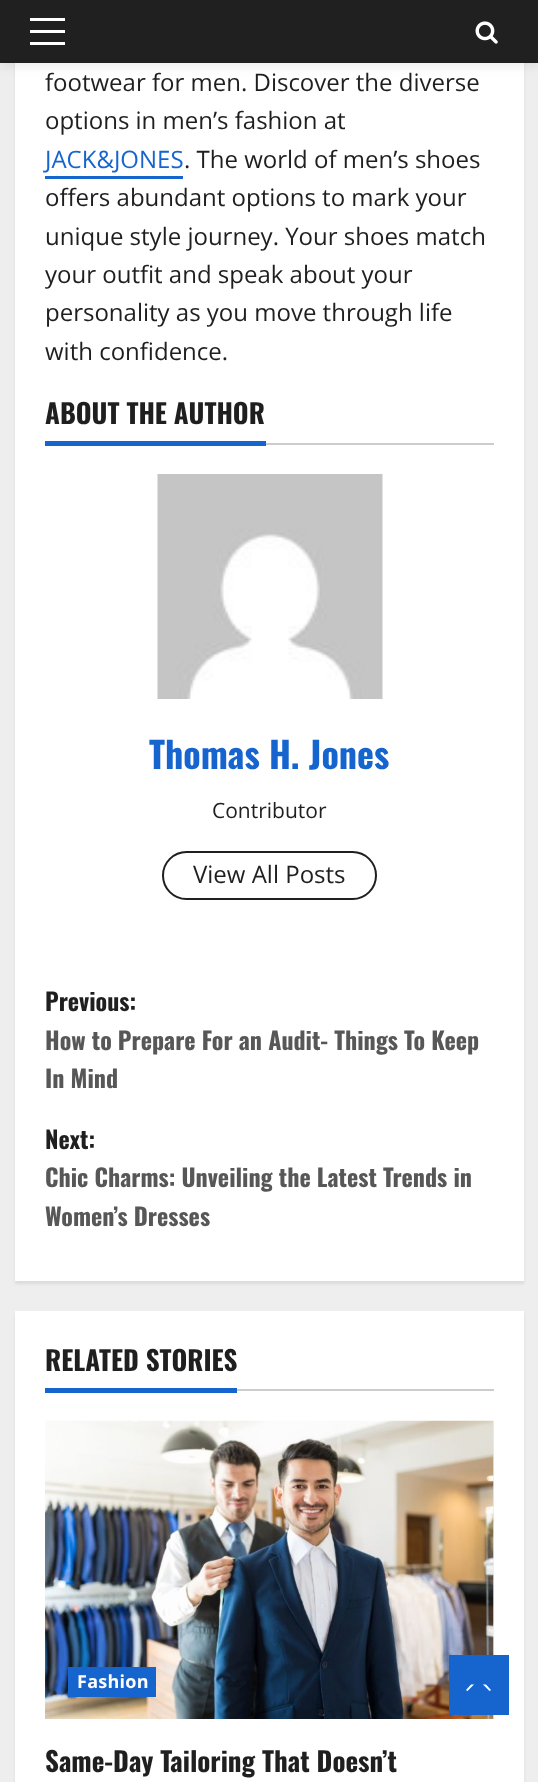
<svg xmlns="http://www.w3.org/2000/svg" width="538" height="1782">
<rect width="100%" height="100%" fill="#eee"/>
<rect x="15" y="-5" width="509" height="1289" fill="#00000014" filter="blur(1.5px)"/>
<rect x="15" y="63" width="509" height="1218" fill="#fff"/>
<rect y="3" width="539" height="63" fill="#00000014" filter="blur(6px)"/>
<rect width="538" height="63" fill="#202020"/>
<rect x="30" y="30" width="35" height="3" fill="#fff"/>
<rect x="30" y="18" width="35" height="3" fill="#fff"/>
<rect x="30" y="42" width="35" height="3" fill="#fff"/>
<image x="475" y="21" width="23" height="23" href="media/1.png"/>
<text x="45" y="91" style="font-family:Open Sans;font-size:24px;fill:#1f1f1f">footwear for men. Discover the diverse</text>
<text x="45" y="129" style="font-family:Open Sans;font-size:24px;fill:#1f1f1f">options in men’s fashion at</text>
<text x="45" y="168" style="font-family:Open Sans;font-size:24px;fill:#1665cf">JACK&amp;JONES</text>
<rect x="45" y="176" width="138" height="3" fill="#1665cf"/>
<text x="184" y="168" style="font-family:Open Sans;font-size:24px;fill:#1f1f1f">. The world of men’s shoes</text>
<text x="45" y="206" style="font-family:Open Sans;font-size:24px;fill:#1f1f1f">offers abundant options to mark your</text>
<text x="45" y="245" style="font-family:Open Sans;font-size:24px;fill:#1f1f1f">unique style journey. Your shoes match</text>
<text x="45" y="283" style="font-family:Open Sans;font-size:24px;fill:#1f1f1f">your outfit and speak about your</text>
<text x="45" y="321" style="font-family:Open Sans;font-size:24px;fill:#1f1f1f">personality as you move through life</text>
<text x="45" y="360" style="font-family:Open Sans;font-size:24px;fill:#1f1f1f">with confidence.</text>
<rect x="266" y="443" width="228" height="2" fill="#ccc"/>
<text x="45" y="424" style="font-family:Oswald;font-size:27px;font-weight:bold;fill:#1f1f1f">ABOUT THE AUTHOR</text>
<rect x="45" y="441" width="221" height="5" fill="#1665cf"/>
<image x="157" y="474" width="226" height="225" href="media/2.png"/>
<text x="149" y="769" style="font-family:Oswald;font-size:36px;font-weight:bold;fill:#1665cf">Thomas H. Jones</text>
<text x="212" y="818" style="font-family:Open Sans;font-size:21px;fill:#1f1f1f">Contributor</text>
<rect x="163" y="852" width="213" height="47" rx="23.5" fill="none" stroke="#1f1f1f" stroke-width="2"/>
<text x="193" y="883" style="font-family:Open Sans;font-size:24px;fill:#1f1f1f">View All Posts</text>
<text x="45" y="1011" style="font-family:Oswald;font-size:24px;font-weight:bold;fill:#1f1f1f">Previous:</text>
<text x="45" y="1050" style="font-family:Oswald;font-size:24px;font-weight:bold;fill:#575757">How to Prepare For an Audit- Things To Keep</text>
<text x="45" y="1088" style="font-family:Oswald;font-size:24px;font-weight:bold;fill:#575757">In Mind</text>
<text x="45" y="1149" style="font-family:Oswald;font-size:24px;font-weight:bold;fill:#1f1f1f">Next:</text>
<text x="45" y="1187" style="font-family:Oswald;font-size:24px;font-weight:bold;fill:#575757">Chic Charms: Unveiling the Latest Trends in</text>
<text x="45" y="1226" style="font-family:Oswald;font-size:24px;font-weight:bold;fill:#575757">Women’s Dresses</text>
<rect x="15" y="1314" width="509" height="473" fill="#00000014" filter="blur(1.5px)"/>
<rect x="15" y="1311" width="509" height="471" fill="#fff"/>
<rect x="237" y="1389" width="257" height="2" fill="#ccc"/>
<text x="45" y="1371" style="font-family:Oswald;font-size:27px;font-weight:bold;fill:#1f1f1f">RELATED STORIES</text>
<rect x="45" y="1388" width="192" height="5" fill="#1665cf"/>
<rect x="493" y="1421" width="1" height="298" fill="#ececec"/>
<image x="45" y="1420" width="449" height="299" href="media/3.png"/>
<rect x="68" y="1667" width="88" height="30" fill="#1665cf"/>
<text x="77" y="1688" style="font-family:Open Sans;font-size:18px;font-weight:bold;letter-spacing:0.25px;fill:#fff">Fashion</text>
<text x="45" y="1772" style="font-family:Oswald;font-size:27px;font-weight:bold;fill:#1f1f1f">Same-Day Tailoring That Doesn’t</text>
<rect x="449" y="1655" width="60" height="60" fill="#1665cf"/>
<path d="M471 1692h15c2 0 4-1 5-2l-5-5.5h-15l-5 5.5c1 1 3 2 5 2z" fill="#fff"/>
<path d="M493.5 1695h-30l15-15z" fill="#1665cf"/>
</svg>
